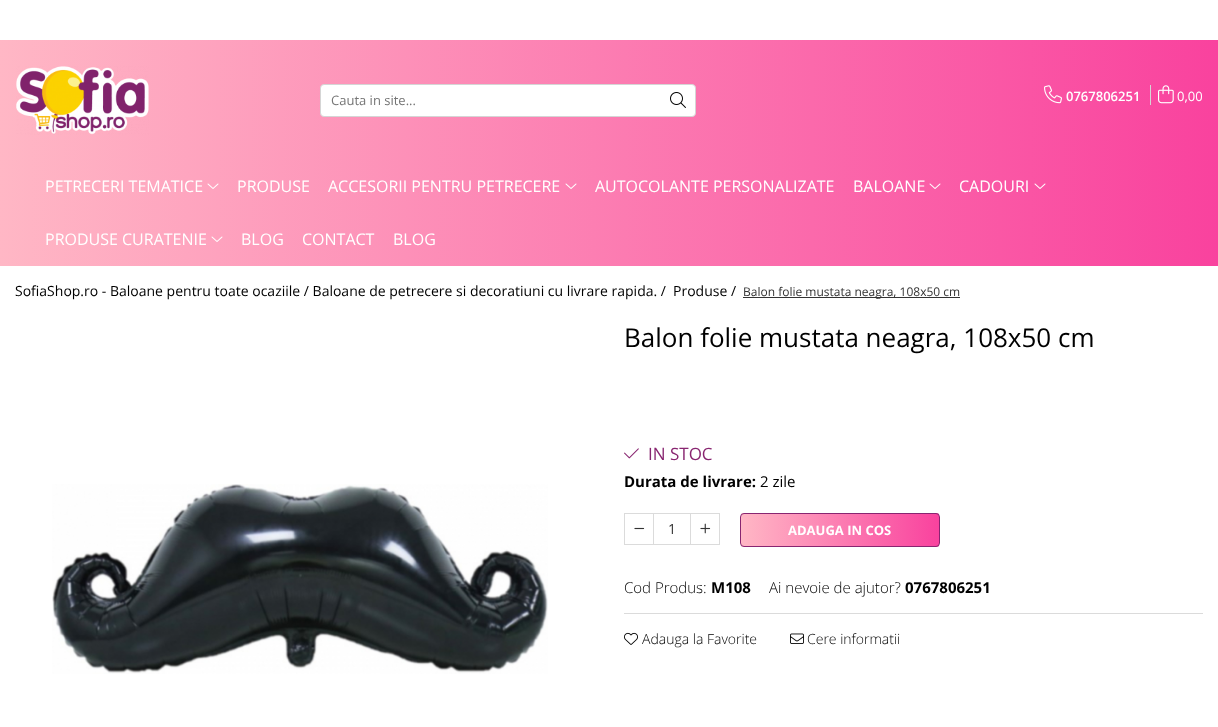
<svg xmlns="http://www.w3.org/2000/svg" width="1218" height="727">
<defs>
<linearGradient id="g1" gradientUnits="userSpaceOnUse" x1="0" y1="100" x2="1218" y2="100"><stop offset="0" stop-color="#ffb7c5"/><stop offset="1" stop-color="#f9429e"/></linearGradient>
<linearGradient id="g2" gradientUnits="userSpaceOnUse" x1="0" y1="213" x2="1218" y2="213"><stop offset="0" stop-color="#ffb7c5"/><stop offset="1" stop-color="#f9429e"/></linearGradient>
<clipPath id="clip1"><rect x="740" y="513" width="200" height="34" rx="4"/></clipPath>
<linearGradient id="g3" gradientUnits="userSpaceOnUse" x1="741" y1="530" x2="939" y2="530"><stop offset="0" stop-color="#ffb7c5"/><stop offset="1" stop-color="#f9429e"/></linearGradient>
</defs>
<rect width="100%" height="100%" fill="#fff"/>
<rect y="40" width="1218" height="120" fill="url(#g1)"/>
<image x="16" y="66" width="133" height="69" href="media/1.png"/>
<rect x="320.5" y="84.5" width="375" height="32" rx="3.5" fill="#fff" stroke="#d5d5d5"/>
<text x="331" y="105" style="font-family:Open Sans;font-size:13px;fill:#757575">Cauta in site...</text>
<image x="670" y="92" width="16" height="16" href="media/2.png"/>
<image x="1044" y="85" width="18" height="19" href="media/3.png"/>
<text x="1066" y="101" style="font-family:Open Sans;font-size:13px;font-weight:600;fill:#fff">0767806251</text>
<rect x="1150" y="85" width="1" height="20" fill="#d5d5d5"/>
<image x="1158" y="85" width="16" height="19" href="media/4.png"/>
<text x="1177" y="101" style="font-family:Open Sans;font-size:13px;fill:#fff">0,00</text>
<rect y="160" width="1218" height="106" fill="url(#g2)"/>
<text x="45" y="192" style="font-family:Open Sans;font-size:16px;fill:#fff">PETRECERI TEMATICE</text>
<image x="207" y="183" width="12" height="6" href="media/5.png"/>
<text x="237" y="192" style="font-family:Open Sans;font-size:16px;fill:#fff">PRODUSE</text>
<text x="328" y="192" style="font-family:Open Sans;font-size:16px;fill:#fff">ACCESORII PENTRU PETRECERE</text>
<image x="565" y="183" width="12" height="6" href="media/6.png"/>
<text x="595" y="192" style="font-family:Open Sans;font-size:16px;fill:#fff">AUTOCOLANTE PERSONALIZATE</text>
<text x="853" y="192" style="font-family:Open Sans;font-size:16px;fill:#fff">BALOANE</text>
<image x="929" y="183" width="12" height="6" href="media/7.png"/>
<text x="959" y="192" style="font-family:Open Sans;font-size:16px;fill:#fff">CADOURI</text>
<image x="1034" y="183" width="12" height="6" href="media/8.png"/>
<text x="45" y="245" style="font-family:Open Sans;font-size:16px;fill:#fff">PRODUSE CURATENIE</text>
<image x="211" y="236" width="12" height="6" href="media/9.png"/>
<text x="241" y="245" style="font-family:Open Sans;font-size:16px;fill:#fff">BLOG</text>
<text x="302" y="245" style="font-family:Open Sans;font-size:16px;fill:#fff">CONTACT</text>
<text x="393" y="245" style="font-family:Open Sans;font-size:16px;fill:#fff">BLOG</text>
<text x="15" y="296" style="font-family:Open Sans;font-size:14px;fill:#000">SofiaShop.ro - Baloane pentru toate ocaziile / Baloane de petrecere si decoratiuni cu livrare rapida. /</text>
<text x="673" y="296" style="font-family:Open Sans;font-size:14px;fill:#000">Produse /</text>
<rect x="743" y="297" width="217" height="1" fill="#333"/>
<text x="743" y="296" style="font-family:Open Sans;font-size:12px;fill:#333">Balon folie mustata neagra, 108x50 cm</text>
<text x="624" y="347" style="font-family:Open Sans;font-size:26px;fill:#000">Balon folie mustata neagra, 108x50 cm</text>
<image x="52" y="484" width="496" height="190" href="media/10.png"/>
<image x="624" y="448" width="15" height="11" href="media/11.png"/>
<text x="648" y="460" style="font-family:Open Sans;font-size:17px;fill:#882570">IN STOC</text>
<text x="624" y="487" style="font-family:Open Sans;font-size:15px;font-weight:bold;fill:#000">Durata de livrare:</text>
<text x="760" y="487" style="font-family:Open Sans;font-size:15px;fill:#000">2 zile</text>
<rect x="624.5" y="513.5" width="29" height="31" fill="none" stroke="#dbdbdb"/>
<image x="634" y="527" width="11" height="3" href="media/12.png"/>
<rect x="654" y="513" width="36" height="1" fill="#dbdbdb"/>
<rect x="654" y="544" width="36" height="1" fill="#dbdbdb"/>
<text x="668" y="534" style="font-family:Open Sans;font-size:14px;fill:#333">1</text>
<rect x="690.5" y="513.5" width="29" height="31" fill="none" stroke="#dbdbdb"/>
<image x="700" y="523" width="11" height="11" href="media/13.png"/>
<g clip-path="url(#clip1)">
<rect x="741" y="513" width="198" height="34" fill="url(#g3)"/>
</g>
<rect x="740.5" y="513.5" width="199" height="33" rx="3.5" fill="none" stroke="#882571"/>
<text x="788" y="535" style="font-family:Open Sans;font-size:13px;font-weight:bold;fill:#fff">ADAUGA IN COS</text>
<text x="624" y="593" style="font-family:Open Sans;font-size:15px;font-weight:300;fill:#000">Cod Produs:</text>
<text x="711" y="593" style="font-family:Open Sans;font-size:15px;font-weight:bold;fill:#000">M108</text>
<text x="769" y="593" style="font-family:Open Sans;font-size:15px;font-weight:300;fill:#000">Ai nevoie de ajutor?</text>
<text x="905" y="593" style="font-family:Open Sans;font-size:15px;font-weight:bold;fill:#000">0767806251</text>
<rect x="624" y="613" width="579" height="1" fill="#dbdbdb"/>
<image x="624" y="632" width="14" height="13" href="media/14.png"/>
<text x="642" y="644" style="font-family:Open Sans;font-size:14px;font-weight:300;fill:#000">Adauga la Favorite</text>
<image x="790" y="633" width="14" height="11" href="media/15.png"/>
<text x="807" y="644" style="font-family:Open Sans;font-size:14px;font-weight:300;fill:#000">Cere informatii</text>
</svg>
